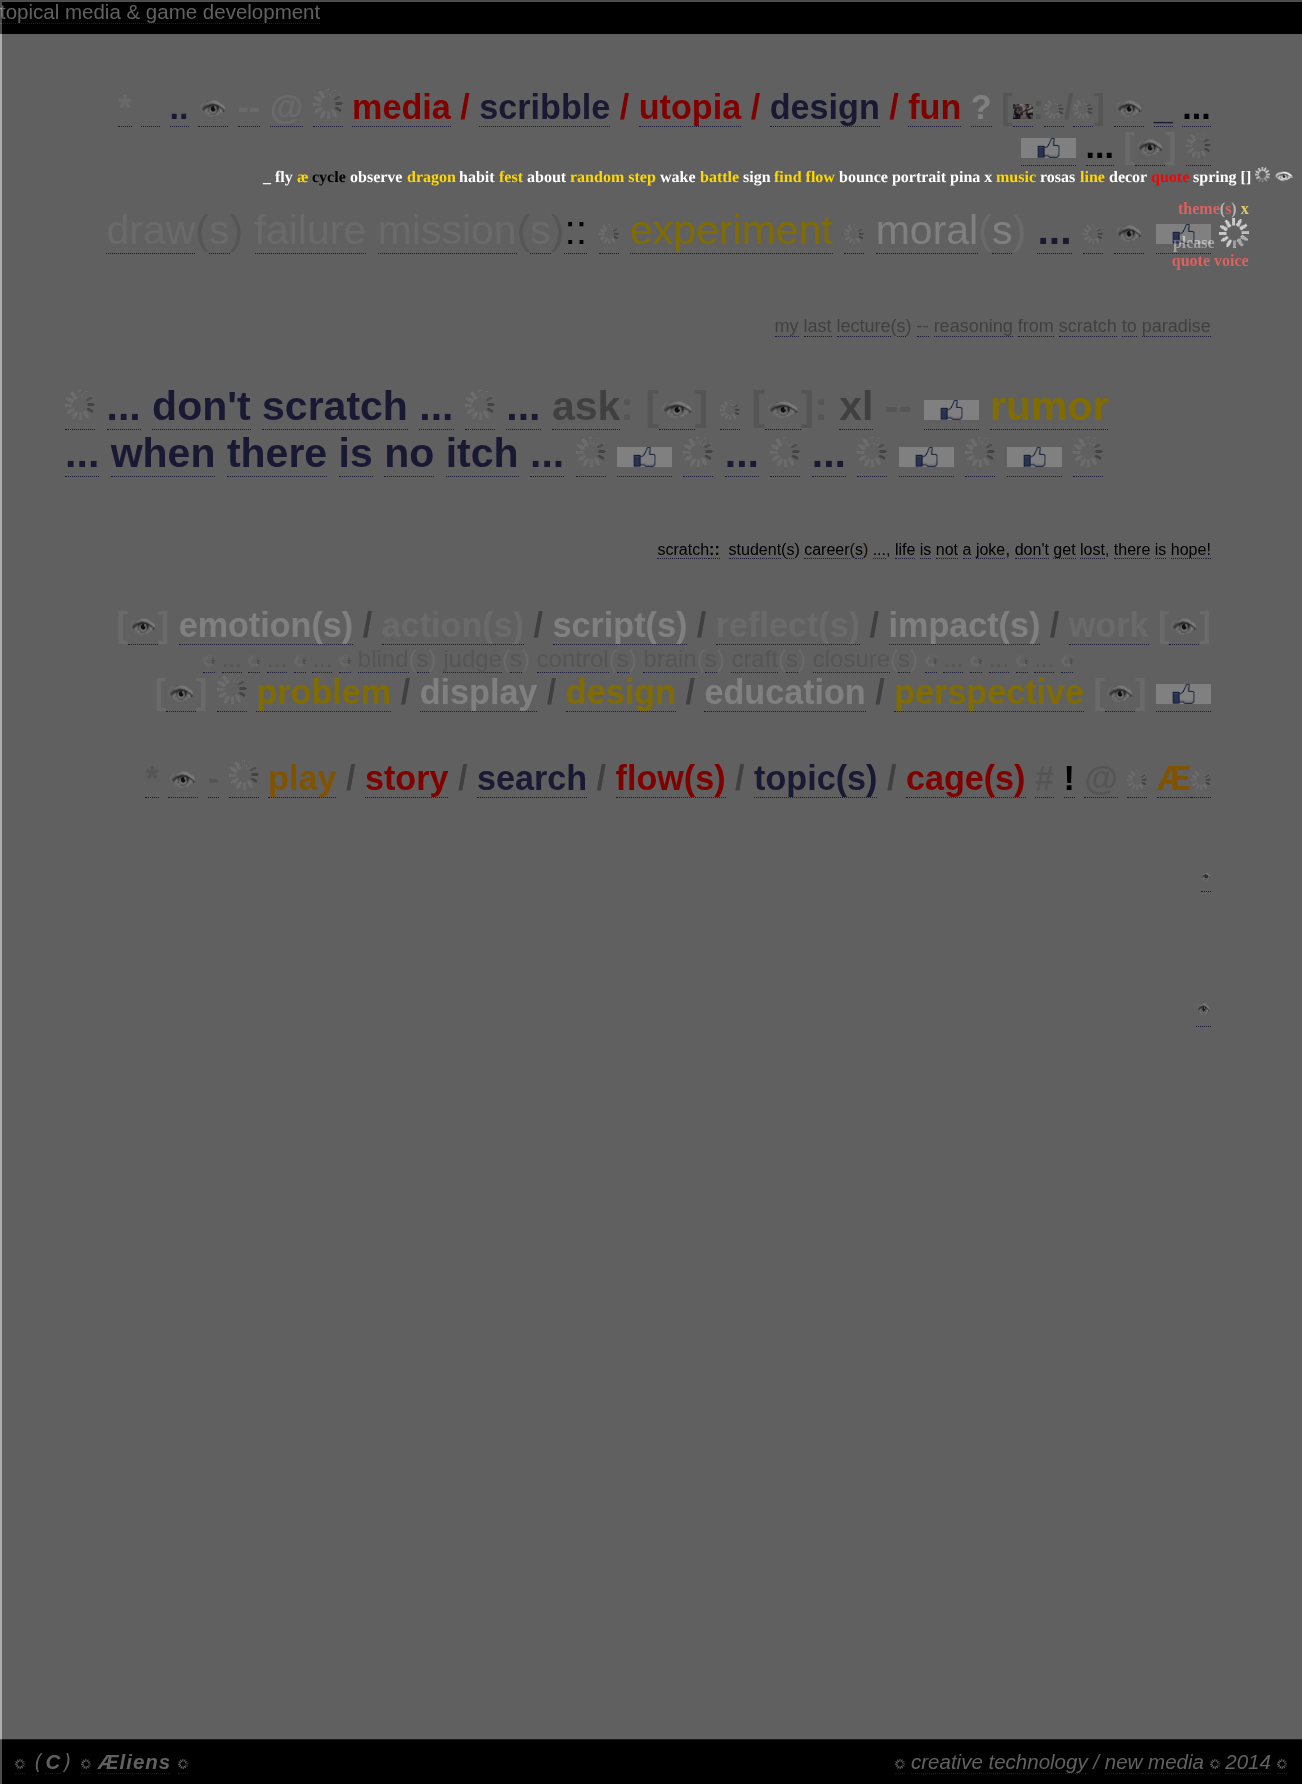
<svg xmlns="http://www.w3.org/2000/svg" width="1302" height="1784">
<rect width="100%" height="100%" fill="#fff"/>
<image x="0" y="0" width="1302" height="1784" href="media/1.png"/>
<image x="0" y="0" width="1302" height="1784" href="media/2.png"/>
<text x="263" y="182" style="font-family:Liberation Serif;font-size:16px;font-weight:bold;fill:#fff">_ fly</text>
<text x="297" y="182" style="font-family:Liberation Serif;font-size:16px;font-weight:bold;fill:#ffd700">æ</text>
<text x="312" y="182" style="font-family:Liberation Serif;font-size:16px;font-weight:bold;fill:#000">cycle</text>
<text x="350" y="182" style="font-family:Liberation Serif;font-size:16px;font-weight:bold;fill:#fff">observe</text>
<text x="407" y="182" style="font-family:Liberation Serif;font-size:16px;font-weight:bold;fill:#ffd700">dragon</text>
<text x="459" y="182" style="font-family:Liberation Serif;font-size:16px;font-weight:bold;fill:#fff">habit</text>
<text x="499" y="182" style="font-family:Liberation Serif;font-size:16px;font-weight:bold;fill:#ffd700">fest</text>
<text x="527" y="182" style="font-family:Liberation Serif;font-size:16px;font-weight:bold;fill:#fff">about</text>
<text x="570" y="182" style="font-family:Liberation Serif;font-size:16px;font-weight:bold;fill:#ffd700">random step</text>
<text x="660" y="182" style="font-family:Liberation Serif;font-size:16px;font-weight:bold;fill:#fff">wake</text>
<text x="700" y="182" style="font-family:Liberation Serif;font-size:16px;font-weight:bold;fill:#ffd700">battle</text>
<text x="743" y="182" style="font-family:Liberation Serif;font-size:16px;font-weight:bold;fill:#fff">sign</text>
<text x="774" y="182" style="font-family:Liberation Serif;font-size:16px;font-weight:bold;fill:#ffd700">find flow</text>
<text x="839" y="182" style="font-family:Liberation Serif;font-size:16px;font-weight:bold;fill:#fff">bounce portrait pina x</text>
<text x="996" y="182" style="font-family:Liberation Serif;font-size:16px;font-weight:bold;fill:#ffd700">music</text>
<text x="1040" y="182" style="font-family:Liberation Serif;font-size:16px;font-weight:bold;fill:#fff">rosas</text>
<text x="1080" y="182" style="font-family:Liberation Serif;font-size:16px;font-weight:bold;fill:#ffd700">line</text>
<text x="1109" y="182" style="font-family:Liberation Serif;font-size:16px;font-weight:bold;fill:#fff">decor</text>
<text x="1151" y="182" style="font-family:Liberation Serif;font-size:16px;font-weight:bold;fill:#f00">quote</text>
<text x="1193" y="182" style="font-family:Liberation Serif;font-size:16px;font-weight:bold;fill:#fff">spring []</text>
<image x="1255" y="167" width="15" height="15" href="media/3.png"/>
<image x="1275" y="171" width="19" height="11" href="media/4.png"/>
</svg>
